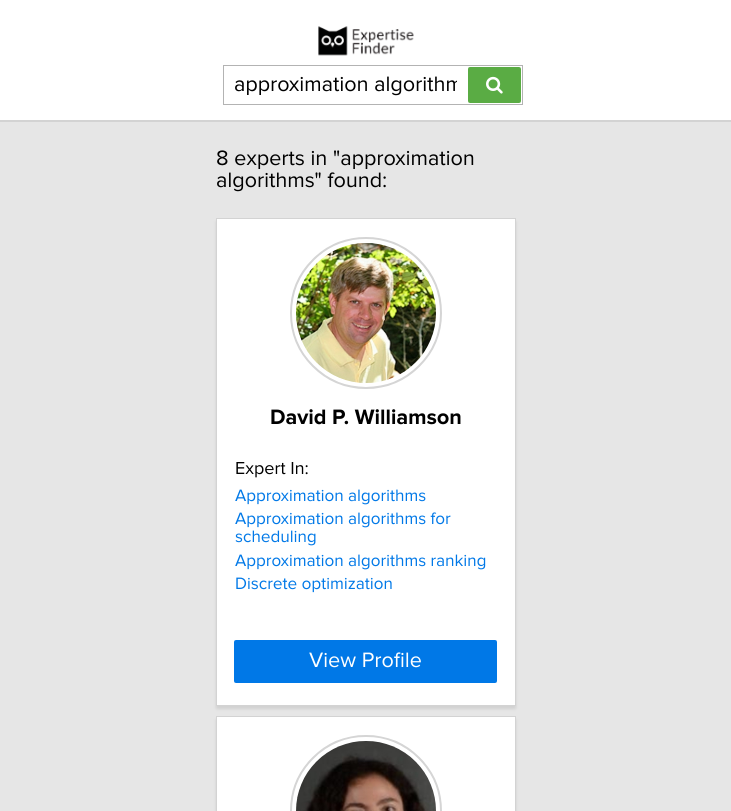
<svg xmlns="http://www.w3.org/2000/svg" width="731" height="811">
<rect width="100%" height="100%" fill="#e6e6e6"/>
<rect width="731" height="120" fill="#fff"/>
<rect y="120" width="731" height="2" fill="#d3d3d3"/>
<image x="318" y="26" width="96" height="30" href="media/1.png"/>
<rect x="223.5" y="65.5" width="299" height="39" fill="none" stroke="#b3b3b3"/>
<image x="235" y="76" width="222" height="20" href="media/2.png"/>
<rect x="468" y="67" width="53" height="36" rx="2" fill="#5aac44"/>
<image x="486" y="76" width="17" height="18" href="media/3.png"/>
<image x="217" y="150" width="257" height="19" href="media/4.png"/>
<image x="217" y="172" width="169" height="20" href="media/5.png"/>
<rect x="216" y="221" width="300" height="488" fill="#00000017" filter="blur(1.5px)"/>
<rect x="216.5" y="218.5" width="299" height="487" fill="#fff" stroke="#d3d3d3"/>
<circle cx="366" cy="313" r="75" fill="none" stroke="#d5d5d5" stroke-width="2"/>
<image x="296" y="243" width="140" height="140" href="media/6.png"/>
<image x="271" y="409" width="190" height="16" href="media/7.png"/>
<image x="236" y="462" width="72" height="16" href="media/8.png"/>
<image x="235" y="489" width="108" height="16" href="media/9.png"/>
<image x="348" y="489" width="78" height="16" href="media/10.png"/>
<image x="235" y="512" width="108" height="16" href="media/9.png"/>
<image x="348" y="512" width="78" height="16" href="media/10.png"/>
<image x="430" y="512" width="21" height="13" href="media/11.png"/>
<image x="235" y="530" width="81" height="16" href="media/12.png"/>
<image x="235" y="554" width="108" height="16" href="media/9.png"/>
<image x="348" y="554" width="78" height="16" href="media/10.png"/>
<image x="431" y="554" width="55" height="16" href="media/13.png"/>
<image x="236" y="577" width="156" height="16" href="media/14.png"/>
<rect x="234" y="640" width="263" height="43" rx="2" fill="#0078e7"/>
<image x="309" y="652" width="112" height="16" href="media/15.png"/>
<rect x="216" y="719" width="300" height="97" fill="#00000017" filter="blur(1.5px)"/>
<rect x="216.5" y="716.5" width="299" height="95" fill="#fff" stroke="#d3d3d3"/>
<circle cx="366" cy="811" r="75" fill="none" stroke="#d5d5d5" stroke-width="2"/>
<image x="296" y="741" width="140" height="70" href="media/16.png"/>
</svg>
